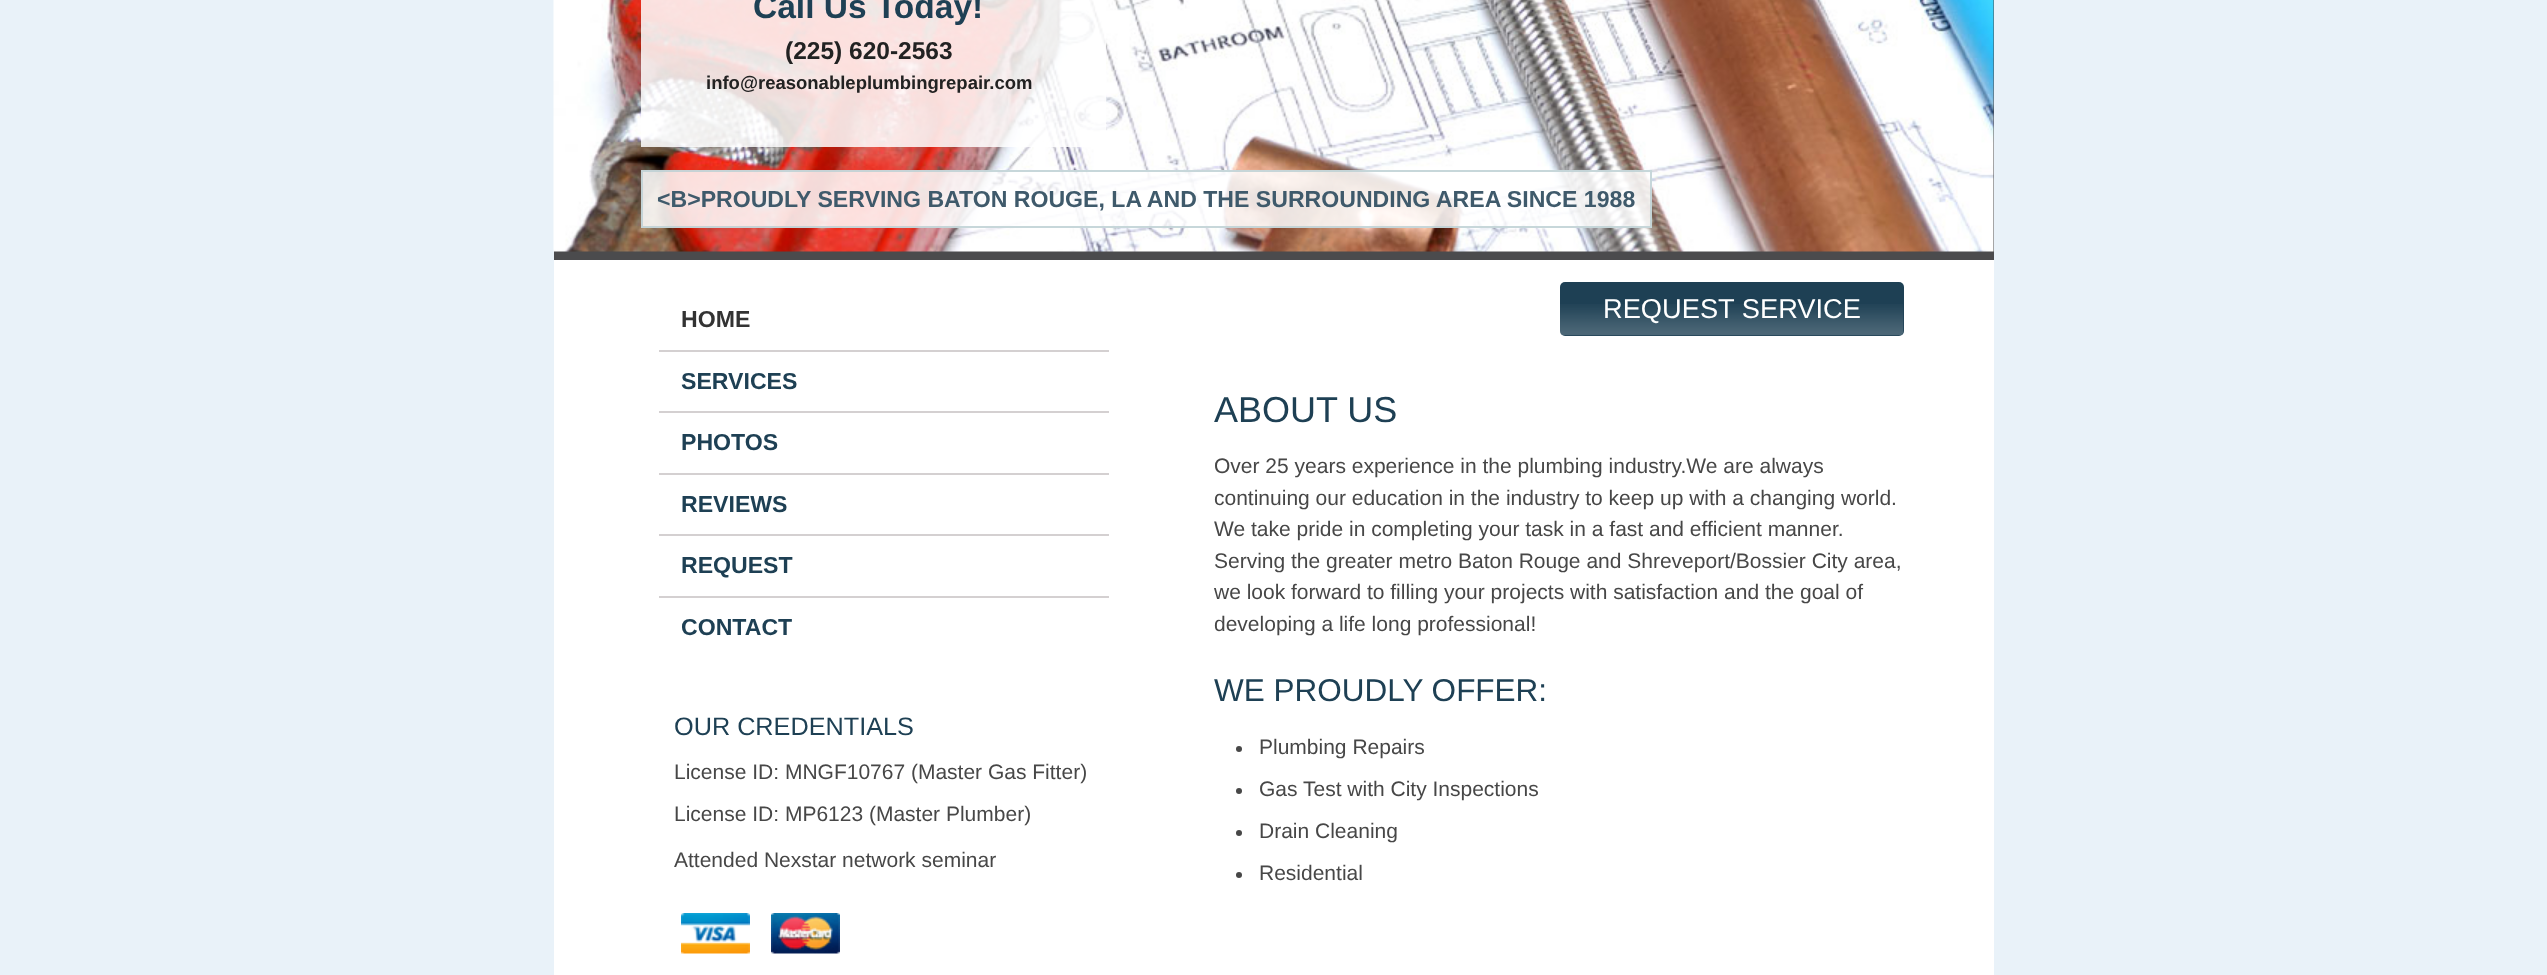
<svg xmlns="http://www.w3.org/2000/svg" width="2547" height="975">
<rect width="100%" height="100%" fill="#e9f2f9"/>
<rect x="554" y="260" width="1440" height="715" fill="#fff"/>
<rect x="554" width="1440" height="260" fill="#4b4b4d"/>
<image x="553" y="0" width="1441" height="252" href="media/1.png"/>
<rect x="641" width="465" height="147" fill="#ffffffd9"/>
<text x="753" y="18" style="font-family:Liberation Sans;font-size:33.5px;font-weight:bold;fill:#1e4054">Call Us Today!</text>
<text x="785" y="59" style="font-family:Liberation Sans;font-size:24.5px;font-weight:bold;fill:#222">(225) 620-2563</text>
<text x="706" y="89" style="font-family:Liberation Sans;font-size:18.5px;font-weight:bold;fill:#222">info@reasonableplumbingrepair.com</text>
<rect x="641" y="170" width="1011" height="58" fill="#ffffffd9"/>
<rect x="642" y="171" width="1009" height="56" fill="none" stroke="#bdd0d3d9" stroke-width="2"/>
<text x="657" y="207" style="font-family:Liberation Sans;font-size:23.1px;font-weight:bold;fill:#3f5a6b">&lt;B&gt;PROUDLY SERVING BATON ROUGE, LA AND THE SURROUNDING AREA SINCE 1988</text>
<rect x="1560" y="282" width="344" height="54" rx="5" fill="#1e4054"/>
<image x="1560" y="304" width="344" height="32" href="media/2.png"/>
<text x="1603" y="318" style="font-family:Liberation Sans;font-size:27.25px;fill:#fff">REQUEST SERVICE</text>
<text x="681" y="327" style="font-family:Liberation Sans;font-size:23.1px;font-weight:bold;fill:#333">HOME</text>
<rect x="659" y="350" width="450" height="2" fill="#d4d0d1"/>
<text x="681" y="389" style="font-family:Liberation Sans;font-size:23.1px;font-weight:bold;fill:#1e4054">SERVICES</text>
<rect x="659" y="411" width="450" height="2" fill="#d4d0d1"/>
<text x="681" y="450" style="font-family:Liberation Sans;font-size:23.1px;font-weight:bold;fill:#1e4054">PHOTOS</text>
<rect x="659" y="473" width="450" height="2" fill="#d4d0d1"/>
<text x="681" y="512" style="font-family:Liberation Sans;font-size:23.1px;font-weight:bold;fill:#1e4054">REVIEWS</text>
<rect x="659" y="534" width="450" height="2" fill="#d4d0d1"/>
<text x="681" y="573" style="font-family:Liberation Sans;font-size:23.1px;font-weight:bold;fill:#1e4054">REQUEST</text>
<rect x="659" y="596" width="450" height="2" fill="#d4d0d1"/>
<text x="681" y="635" style="font-family:Liberation Sans;font-size:23.1px;font-weight:bold;fill:#1e4054">CONTACT</text>
<text x="674" y="735" style="font-family:Liberation Sans;font-size:25.25px;fill:#1e4054">OUR CREDENTIALS</text>
<text x="674" y="779" style="font-family:Liberation Sans;font-size:21px;fill:#474747">License ID: MNGF10767 (Master Gas Fitter)</text>
<text x="674" y="821" style="font-family:Liberation Sans;font-size:21px;fill:#474747">License ID: MP6123 (Master Plumber)</text>
<text x="674" y="867" style="font-family:Liberation Sans;font-size:21px;fill:#474747">Attended Nexstar network seminar</text>
<image x="681" y="913" width="69" height="41" href="media/3.png"/>
<image x="771" y="913" width="69" height="41" href="media/4.png"/>
<text x="1214" y="422" style="font-family:Liberation Sans;font-size:36px;fill:#1e4054">ABOUT US</text>
<text x="1214" y="473" style="font-family:Liberation Sans;font-size:21px;fill:#474747">Over 25 years experience in the plumbing industry.We are always</text>
<text x="1214" y="505" style="font-family:Liberation Sans;font-size:21px;fill:#474747">continuing our education in the industry to keep up with a changing world.</text>
<text x="1214" y="536" style="font-family:Liberation Sans;font-size:21px;fill:#474747">We take pride in completing your task in a fast and efficient manner.</text>
<text x="1214" y="568" style="font-family:Liberation Sans;font-size:21px;fill:#474747">Serving the greater metro Baton Rouge and Shreveport/Bossier City area,</text>
<text x="1214" y="599" style="font-family:Liberation Sans;font-size:21px;fill:#474747">we look forward to filling your projects with satisfaction and the goal of</text>
<text x="1214" y="631" style="font-family:Liberation Sans;font-size:21px;fill:#474747">developing a life long professional!</text>
<text x="1214" y="701" style="font-family:Liberation Sans;font-size:31.5px;fill:#1e4054">WE PROUDLY OFFER:</text>
<circle cx="1239" cy="749" r="3" fill="#474747"/>
<text x="1259" y="754" style="font-family:Liberation Sans;font-size:21px;fill:#474747">Plumbing Repairs</text>
<circle cx="1239" cy="791" r="3" fill="#474747"/>
<text x="1259" y="796" style="font-family:Liberation Sans;font-size:21px;fill:#474747">Gas Test with City Inspections</text>
<circle cx="1239" cy="833" r="3" fill="#474747"/>
<text x="1259" y="838" style="font-family:Liberation Sans;font-size:21px;fill:#474747">Drain Cleaning</text>
<circle cx="1239" cy="875" r="3" fill="#474747"/>
<text x="1259" y="880" style="font-family:Liberation Sans;font-size:21px;fill:#474747">Residential</text>
</svg>
